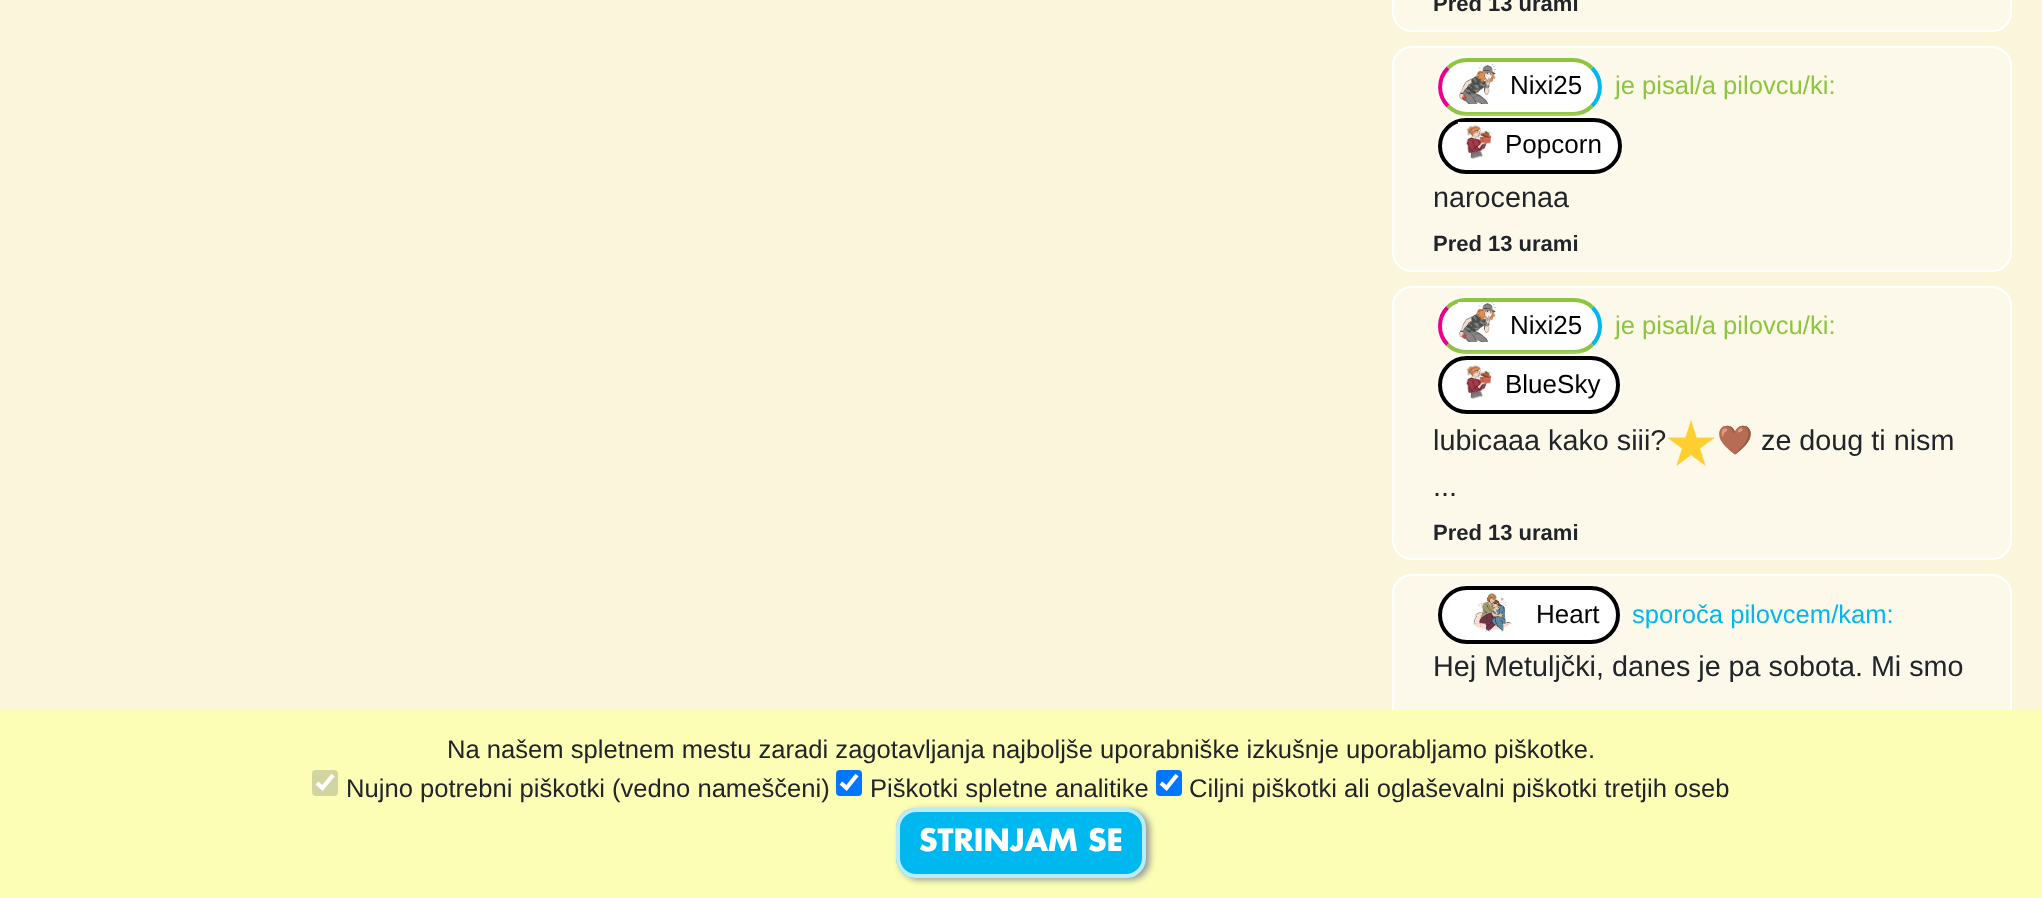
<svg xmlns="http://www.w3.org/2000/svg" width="2042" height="898">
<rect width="100%" height="100%" fill="#faf5db"/>
<rect x="1393" y="-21" width="618" height="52" rx="19" fill="#fcf9e9" stroke="#fff" stroke-width="2"/>
<text x="1433" y="11" style="font-family:Liberation Sans;font-size:22px;font-weight:bold;fill:#212529">Pred 13 urami</text>
<rect x="1393" y="47" width="618" height="224" rx="19" fill="#fcf9ea" stroke="#fff" stroke-width="2"/>
<rect x="1438" y="58" width="164" height="58" rx="29" fill="#fff" filter="blur(3px)"/>
<rect x="1438" y="58" width="164" height="58" rx="29" fill="#fff"/>
<path d="M1448 68c5-5 12-8 19-8h106c7 0 14 3 19 8" fill="none" stroke="#8dc53e" stroke-width="4"/>
<path d="M1592 68c10.5 10.5 10.5 27.5 0 38" fill="none" stroke="#00b8f0" stroke-width="4"/>
<path d="M1592 106c-5 5-12 8-19 8h-106c-7 0-14-3-19-8" fill="none" stroke="#8dc53e" stroke-width="4"/>
<path d="M1448 106c-10.5-10.5-10.5-27.5 0-38" fill="none" stroke="#eb008b" stroke-width="4"/>
<image x="1458" y="64" width="39" height="40" href="media/1.png"/>
<text x="1510" y="94" style="font-family:Liberation Sans;font-size:26px;fill:#000">Nixi25</text>
<text x="1615" y="94" style="font-family:Liberation Sans;font-size:25.6px;fill:#8dc53e">je pisal/a pilovcu/ki:</text>
<rect x="1438" y="118" width="184" height="56" rx="28" fill="#fff" filter="blur(3px)"/>
<rect x="1440" y="120" width="180" height="52" rx="26" fill="#fff" stroke="#000" stroke-width="4"/>
<image x="1458" y="122" width="34" height="37" href="media/2.png"/>
<text x="1505" y="153" style="font-family:Liberation Sans;font-size:26px;fill:#000">Popcorn</text>
<text x="1433" y="207" style="font-family:Liberation Sans;font-size:28.75px;fill:#212529">narocenaa</text>
<text x="1433" y="251" style="font-family:Liberation Sans;font-size:22px;font-weight:bold;fill:#212529">Pred 13 urami</text>
<rect x="1393" y="287" width="618" height="272" rx="19" fill="#fcf9ea" stroke="#fff" stroke-width="2"/>
<rect x="1438" y="298" width="164" height="56" rx="28" fill="#fff" filter="blur(3px)"/>
<rect x="1438" y="298" width="164" height="56" rx="28" fill="#fff"/>
<path d="M1447.5 307.5c5-5 11.5-7.5 18.5-7.5h108c7 0 13.5 2.5 18.5 7.5" fill="none" stroke="#8dc53e" stroke-width="4"/>
<path d="M1592.5 307.5c10 10 10 27 0 37" fill="none" stroke="#00b8f0" stroke-width="4"/>
<path d="M1592.5 344.5c-5 5-11.5 7.5-18.5 7.5h-108c-7 0-13.5-2.5-18.5-7.5" fill="none" stroke="#8dc53e" stroke-width="4"/>
<path d="M1447.5 344.5c-10-10-10-27 0-37" fill="none" stroke="#eb008b" stroke-width="4"/>
<image x="1458" y="302" width="39" height="40" href="media/3.png"/>
<text x="1510" y="334" style="font-family:Liberation Sans;font-size:26px;fill:#000">Nixi25</text>
<text x="1615" y="334" style="font-family:Liberation Sans;font-size:25.6px;fill:#8dc53e">je pisal/a pilovcu/ki:</text>
<rect x="1438" y="356" width="182" height="58" rx="29" fill="#fff" filter="blur(3px)"/>
<rect x="1440" y="358" width="178" height="54" rx="27" fill="#fff" stroke="#000" stroke-width="4"/>
<image x="1466" y="365" width="26" height="34" href="media/4.png"/>
<text x="1505" y="393" style="font-family:Liberation Sans;font-size:26px;fill:#000">BlueSky</text>
<text x="1433" y="450" style="font-family:Liberation Sans;font-size:28.75px;fill:#212529">lubicaaa kako siii?</text>
<image x="1667" y="420" width="48" height="46" href="media/5.png"/>
<text x="1717" y="450" style="font-family:Noto Color Emoji;font-size:28.75px;fill:#212529">🤎</text>
<text x="1761" y="450" style="font-family:Liberation Sans;font-size:28.75px;fill:#212529">ze doug ti nism</text>
<text x="1433" y="496" style="font-family:Liberation Sans;font-size:28.75px;fill:#212529">...</text>
<text x="1433" y="540" style="font-family:Liberation Sans;font-size:22px;font-weight:bold;fill:#212529">Pred 13 urami</text>
<rect x="1393" y="575" width="618" height="202" rx="19" fill="#fcf9ea" stroke="#fff" stroke-width="2"/>
<rect x="1438" y="586" width="182" height="58" rx="29" fill="#fff" filter="blur(3px)"/>
<rect x="1440" y="588" width="178" height="54" rx="27" fill="#fff" stroke="#000" stroke-width="4"/>
<image x="1473" y="593" width="39" height="39" href="media/6.png"/>
<text x="1536" y="623" style="font-family:Liberation Sans;font-size:26px;fill:#000">Heart</text>
<text x="1632" y="623" style="font-family:Liberation Sans;font-size:25.6px;fill:#00b8f0">sporoča pilovcem/kam:</text>
<text x="1433" y="676" style="font-family:Liberation Sans;font-size:28.75px;fill:#212529">Hej Metuljčki, danes je pa sobota. Mi smo</text>
<rect y="710" width="2042" height="188" fill="#fbfeb4"/>
<text x="447" y="758" style="font-family:Liberation Sans;font-size:25.6px;fill:#212529">Na našem spletnem mestu zaradi zagotavljanja najboljše uporabniške izkušnje uporabljamo piškotke.</text>
<rect x="312" y="770" width="26" height="26" rx="4" fill="#d3d5a1"/>
<path d="M317 783l5.5 5l10.5-13" fill="none" stroke="#fff" stroke-width="4.2"/>
<text x="346" y="797" style="font-family:Liberation Sans;font-size:25.6px;fill:#212529">Nujno potrebni piškotki (vedno nameščeni)</text>
<rect x="836" y="770" width="26" height="26" rx="4" fill="#0075ff"/>
<path d="M841 783l5.5 5l10.5-13" fill="none" stroke="#fff" stroke-width="4.2"/>
<text x="870" y="797" style="font-family:Liberation Sans;font-size:25.6px;fill:#212529">Piškotki spletne analitike</text>
<rect x="1156" y="770" width="26" height="26" rx="4" fill="#0075ff"/>
<path d="M1161 783l5.5 5l10.5-13" fill="none" stroke="#fff" stroke-width="4.2"/>
<text x="1189" y="797" style="font-family:Liberation Sans;font-size:25.6px;fill:#212529">Ciljni piškotki ali oglaševalni piškotki tretjih oseb</text>
<rect x="900" y="810" width="250" height="70" rx="20" fill="#999" filter="blur(3px)"/>
<rect x="896" y="808" width="250" height="70" rx="20" fill="#00b8f0"/>
<rect x="898" y="810" width="246" height="66" rx="18" fill="none" stroke="#ffffffba" stroke-width="4"/>
<text x="919" y="851" style="font-family:Futura;font-size:30px;font-weight:bold;fill:#fff">STRINJAM SE</text>
</svg>
